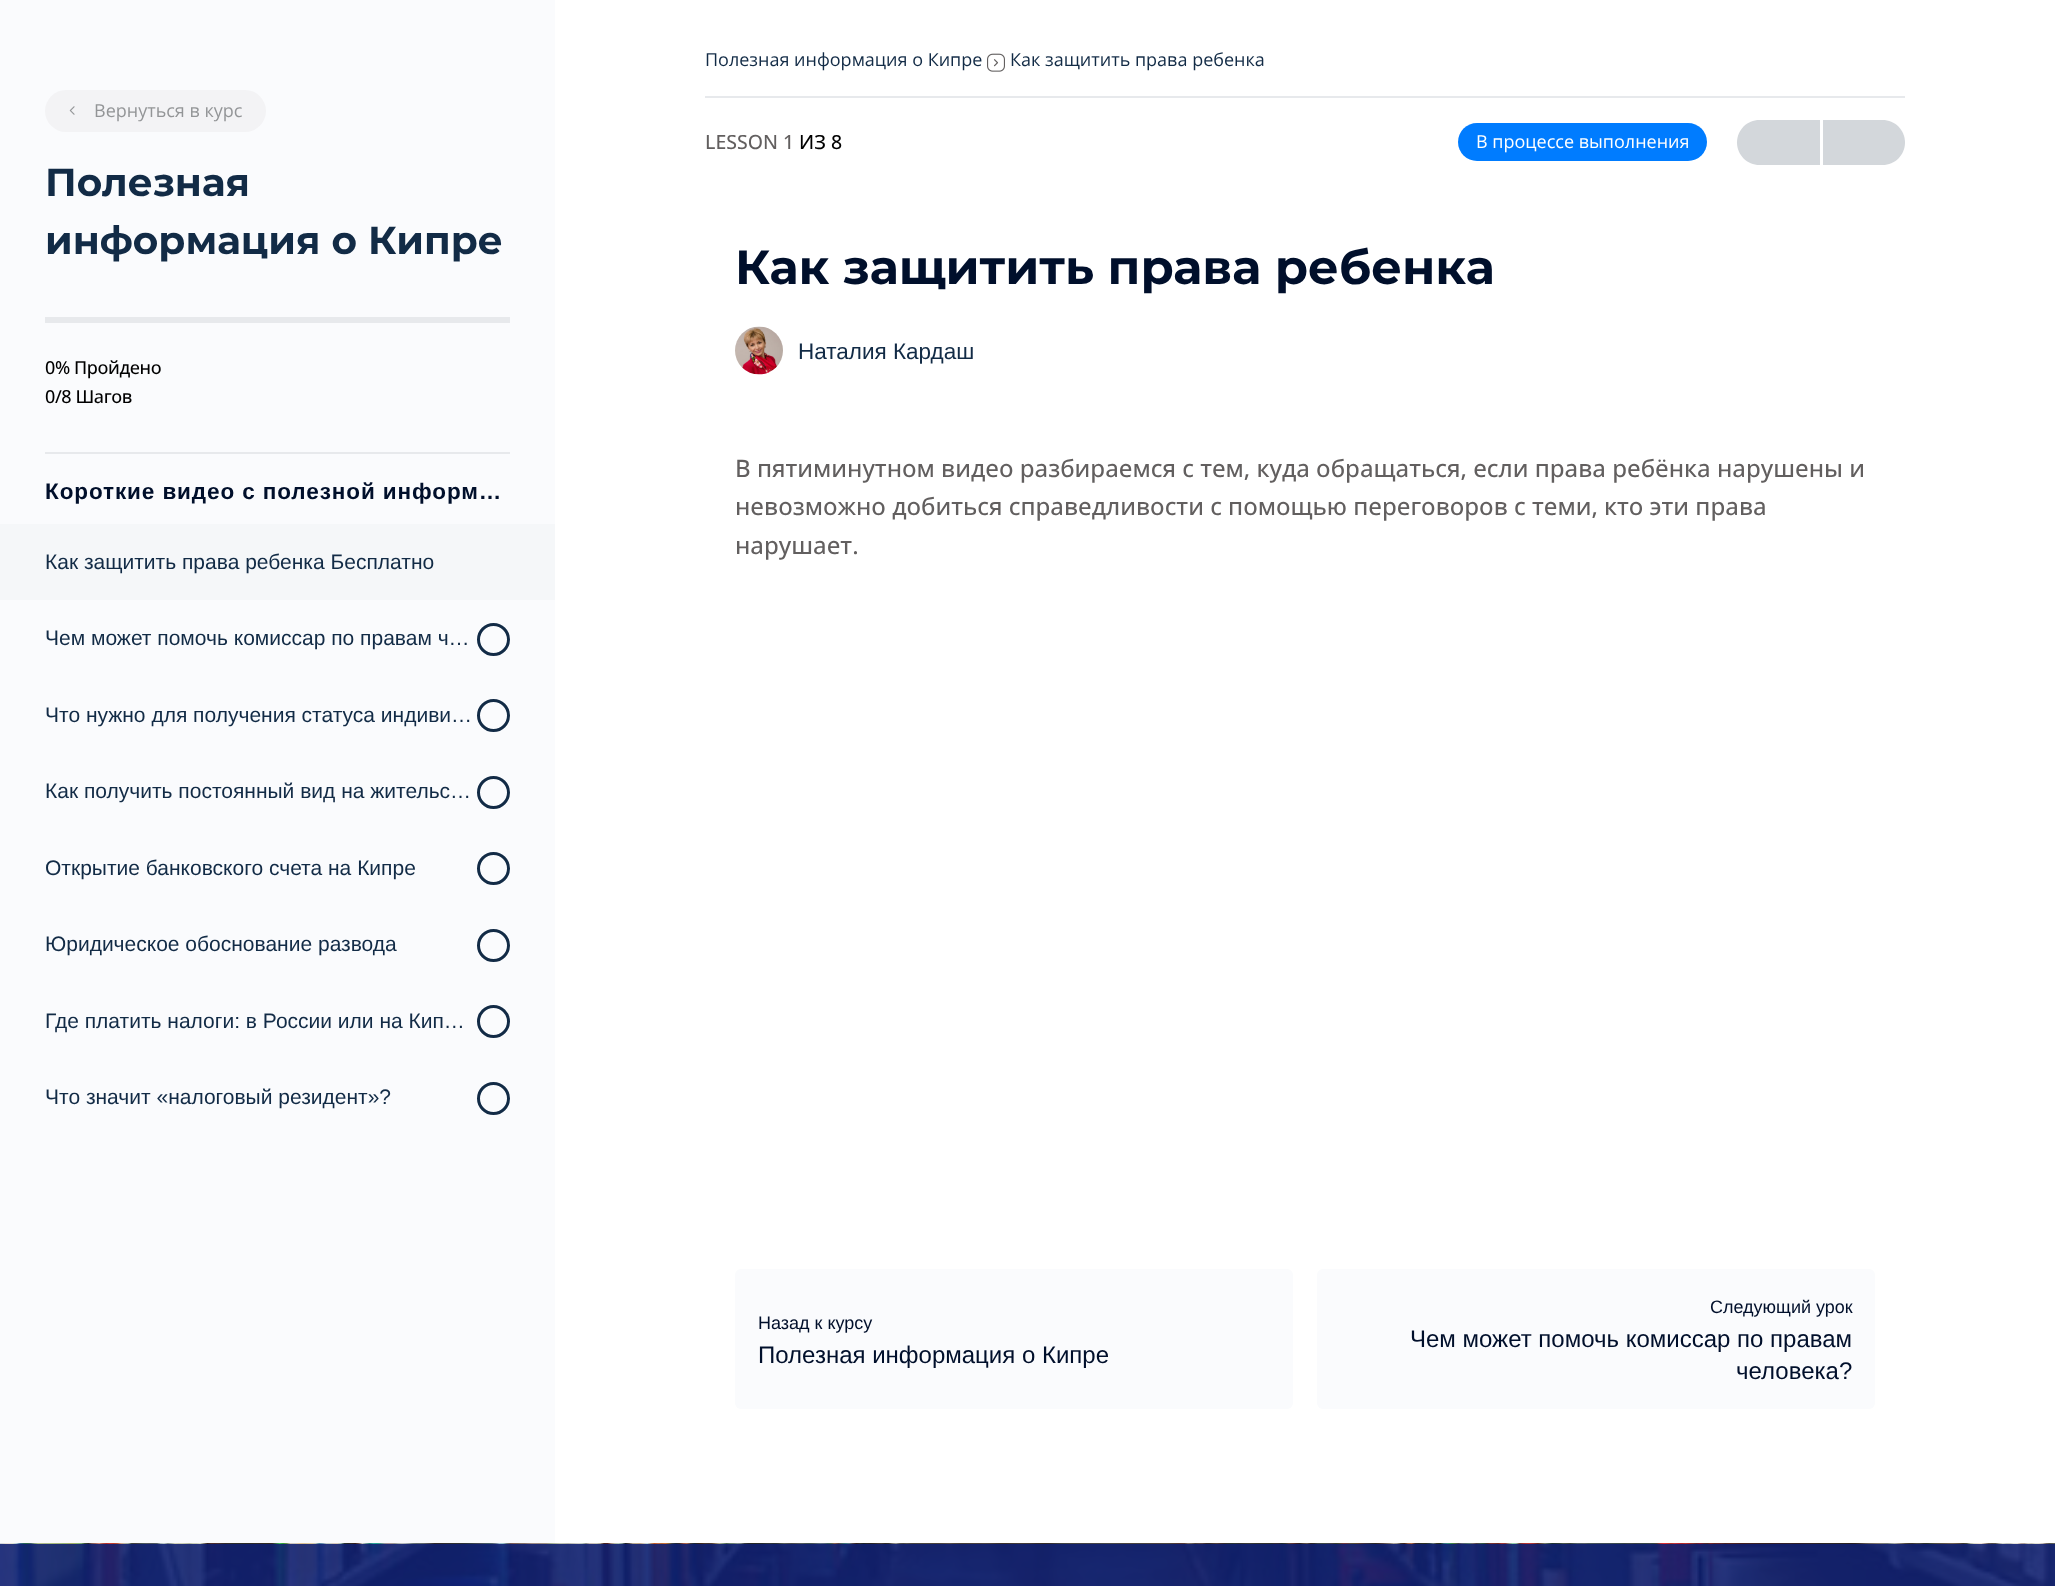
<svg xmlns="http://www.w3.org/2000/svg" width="2055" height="1586">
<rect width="100%" height="100%" fill="#fafbfd"/>
<rect x="45" y="90" width="221" height="42" rx="21" fill="#f3f3f5"/>
<image x="69" y="106" width="6" height="9" href="media/1.png"/>
<text x="94" y="117" style="font-family:Open Sans;font-size:18px;fill:#939597">Вернуться в курс</text>
<text x="45" y="196" style="font-family:Montserrat;font-size:39px;font-weight:100;fill:#122b46">Полезная</text>
<text x="45" y="254" style="font-family:Montserrat;font-size:39px;font-weight:100;fill:#122b46">информация о Кипре</text>
<rect x="45" y="452" width="465" height="2" fill="#e7e9ec"/>
<rect x="45" y="317" width="465" height="6" fill="#e7e9ec"/>
<text x="45" y="374" style="font-family:Open Sans;font-size:18px;font-weight:500;letter-spacing:-0.4px;fill:#000">0% Пройдено</text>
<text x="45" y="403" style="font-family:Open Sans;font-size:18px;font-weight:500;letter-spacing:-0.4px;fill:#000">0/8 Шагов</text>
<text x="45" y="499" style="font-family:Liberation Sans;font-size:22.5px;font-weight:bold;letter-spacing:0.9px;fill:#000f2b">Короткие видео с полезной информ…</text>
<rect y="524" width="555" height="76" fill="#f5f7f9"/>
<text x="45" y="569" style="font-family:Liberation Sans;font-size:21px;fill:#122b46">Как защитить права ребенка Бесплатно</text>
<text x="45" y="645" style="font-family:Liberation Sans;font-size:21px;fill:#122b46">Чем может помочь комиссар по правам ч…</text>
<circle cx="493.5" cy="639.5" r="15" fill="none" stroke="#122b46" stroke-width="3"/>
<text x="45" y="722" style="font-family:Liberation Sans;font-size:21px;fill:#122b46">Что нужно для получения статуса индиви…</text>
<circle cx="493.5" cy="715.5" r="15" fill="none" stroke="#122b46" stroke-width="3"/>
<text x="45" y="798" style="font-family:Liberation Sans;font-size:21px;fill:#122b46">Как получить постоянный вид на жительс…</text>
<circle cx="493.5" cy="792.5" r="15" fill="none" stroke="#122b46" stroke-width="3"/>
<text x="45" y="875" style="font-family:Liberation Sans;font-size:21px;fill:#122b46">Открытие банковского счета на Кипре</text>
<circle cx="493.5" cy="868.5" r="15" fill="none" stroke="#122b46" stroke-width="3"/>
<text x="45" y="951" style="font-family:Liberation Sans;font-size:21px;fill:#122b46">Юридическое обоснование развода</text>
<circle cx="493.5" cy="945.5" r="15" fill="none" stroke="#122b46" stroke-width="3"/>
<text x="45" y="1028" style="font-family:Liberation Sans;font-size:21px;fill:#122b46">Где платить налоги: в России или на Кип…</text>
<circle cx="493.5" cy="1021.5" r="15" fill="none" stroke="#122b46" stroke-width="3"/>
<text x="45" y="1104" style="font-family:Liberation Sans;font-size:21px;fill:#122b46">Что значит «налоговый резидент»?</text>
<circle cx="493.5" cy="1098.5" r="15" fill="none" stroke="#122b46" stroke-width="3"/>
<rect x="555" width="1500" height="1543" fill="#fff"/>
<rect x="705" y="96" width="1200" height="2" fill="#e7e9ec"/>
<text x="705" y="66" style="font-family:Open Sans;font-size:18px;fill:#122b46">Полезная информация о Кипре</text>
<image x="987" y="53" width="18" height="19" href="media/2.png"/>
<text x="1010" y="66" style="font-family:Open Sans;font-size:18px;fill:#122b46">Как защитить права ребенка</text>
<text x="705" y="149" style="font-family:Open Sans;font-size:19.5px;font-weight:500;fill:#625f5f">LESSON 1</text>
<text x="799" y="149" style="font-family:Open Sans;font-size:19.5px;font-weight:500;fill:#000">ИЗ 8</text>
<rect x="1458" y="123" width="249" height="38" rx="19" fill="#007cff"/>
<text x="1476" y="148" style="font-family:Open Sans;font-size:18px;fill:#fff">В процессе выполнения</text>
<path d="M1759.5 120h60.5v45h-60.5c-12.5 0-22.5-10-22.5-22.5c0-12.5 10-22.5 22.5-22.5z" fill="#d3d7db"/>
<path d="M1823 120h59.5c12.5 0 22.5 10 22.5 22.5c0 12.5-10 22.5-22.5 22.5h-59.5z" fill="#d3d7db"/>
<text x="735" y="284" style="font-family:Montserrat;font-size:48px;font-weight:100;fill:#000f2b">Как защитить права ребенка</text>
<image x="735" y="326" width="48" height="49" href="media/3.png"/>
<text x="798" y="359" style="font-family:Liberation Sans;font-size:22.5px;fill:#122b46">Наталия Кардаш</text>
<text x="735" y="477" style="font-family:Open Sans;font-size:24px;font-weight:500;fill:#625f5f">В пятиминутном видео разбираемся с тем, куда обращаться, если права ребёнка нарушены и</text>
<text x="735" y="515" style="font-family:Open Sans;font-size:24px;font-weight:500;fill:#625f5f">невозможно добиться справедливости с помощью переговоров с теми, кто эти права</text>
<text x="735" y="554" style="font-family:Open Sans;font-size:24px;font-weight:500;fill:#625f5f">нарушает.</text>
<rect x="735" y="1269" width="558" height="140" rx="6" fill="#fafbfd"/>
<text x="758" y="1329" style="font-family:Liberation Sans;font-size:18px;fill:#000f2b">Назад к курсу</text>
<text x="758" y="1363" style="font-family:Liberation Sans;font-size:24px;fill:#000f2b">Полезная информация о Кипре</text>
<rect x="1317" y="1269" width="558" height="140" rx="6" fill="#fafbfd"/>
<text x="1710" y="1313" style="font-family:Liberation Sans;font-size:18px;fill:#000f2b">Следующий урок</text>
<text x="1410" y="1347" style="font-family:Liberation Sans;font-size:24px;fill:#000f2b">Чем может помочь комиссар по правам</text>
<text x="1736" y="1379" style="font-family:Liberation Sans;font-size:24px;fill:#000f2b">человека?</text>
<image x="0" y="1543" width="2055" height="43" href="media/4.png"/>
</svg>
